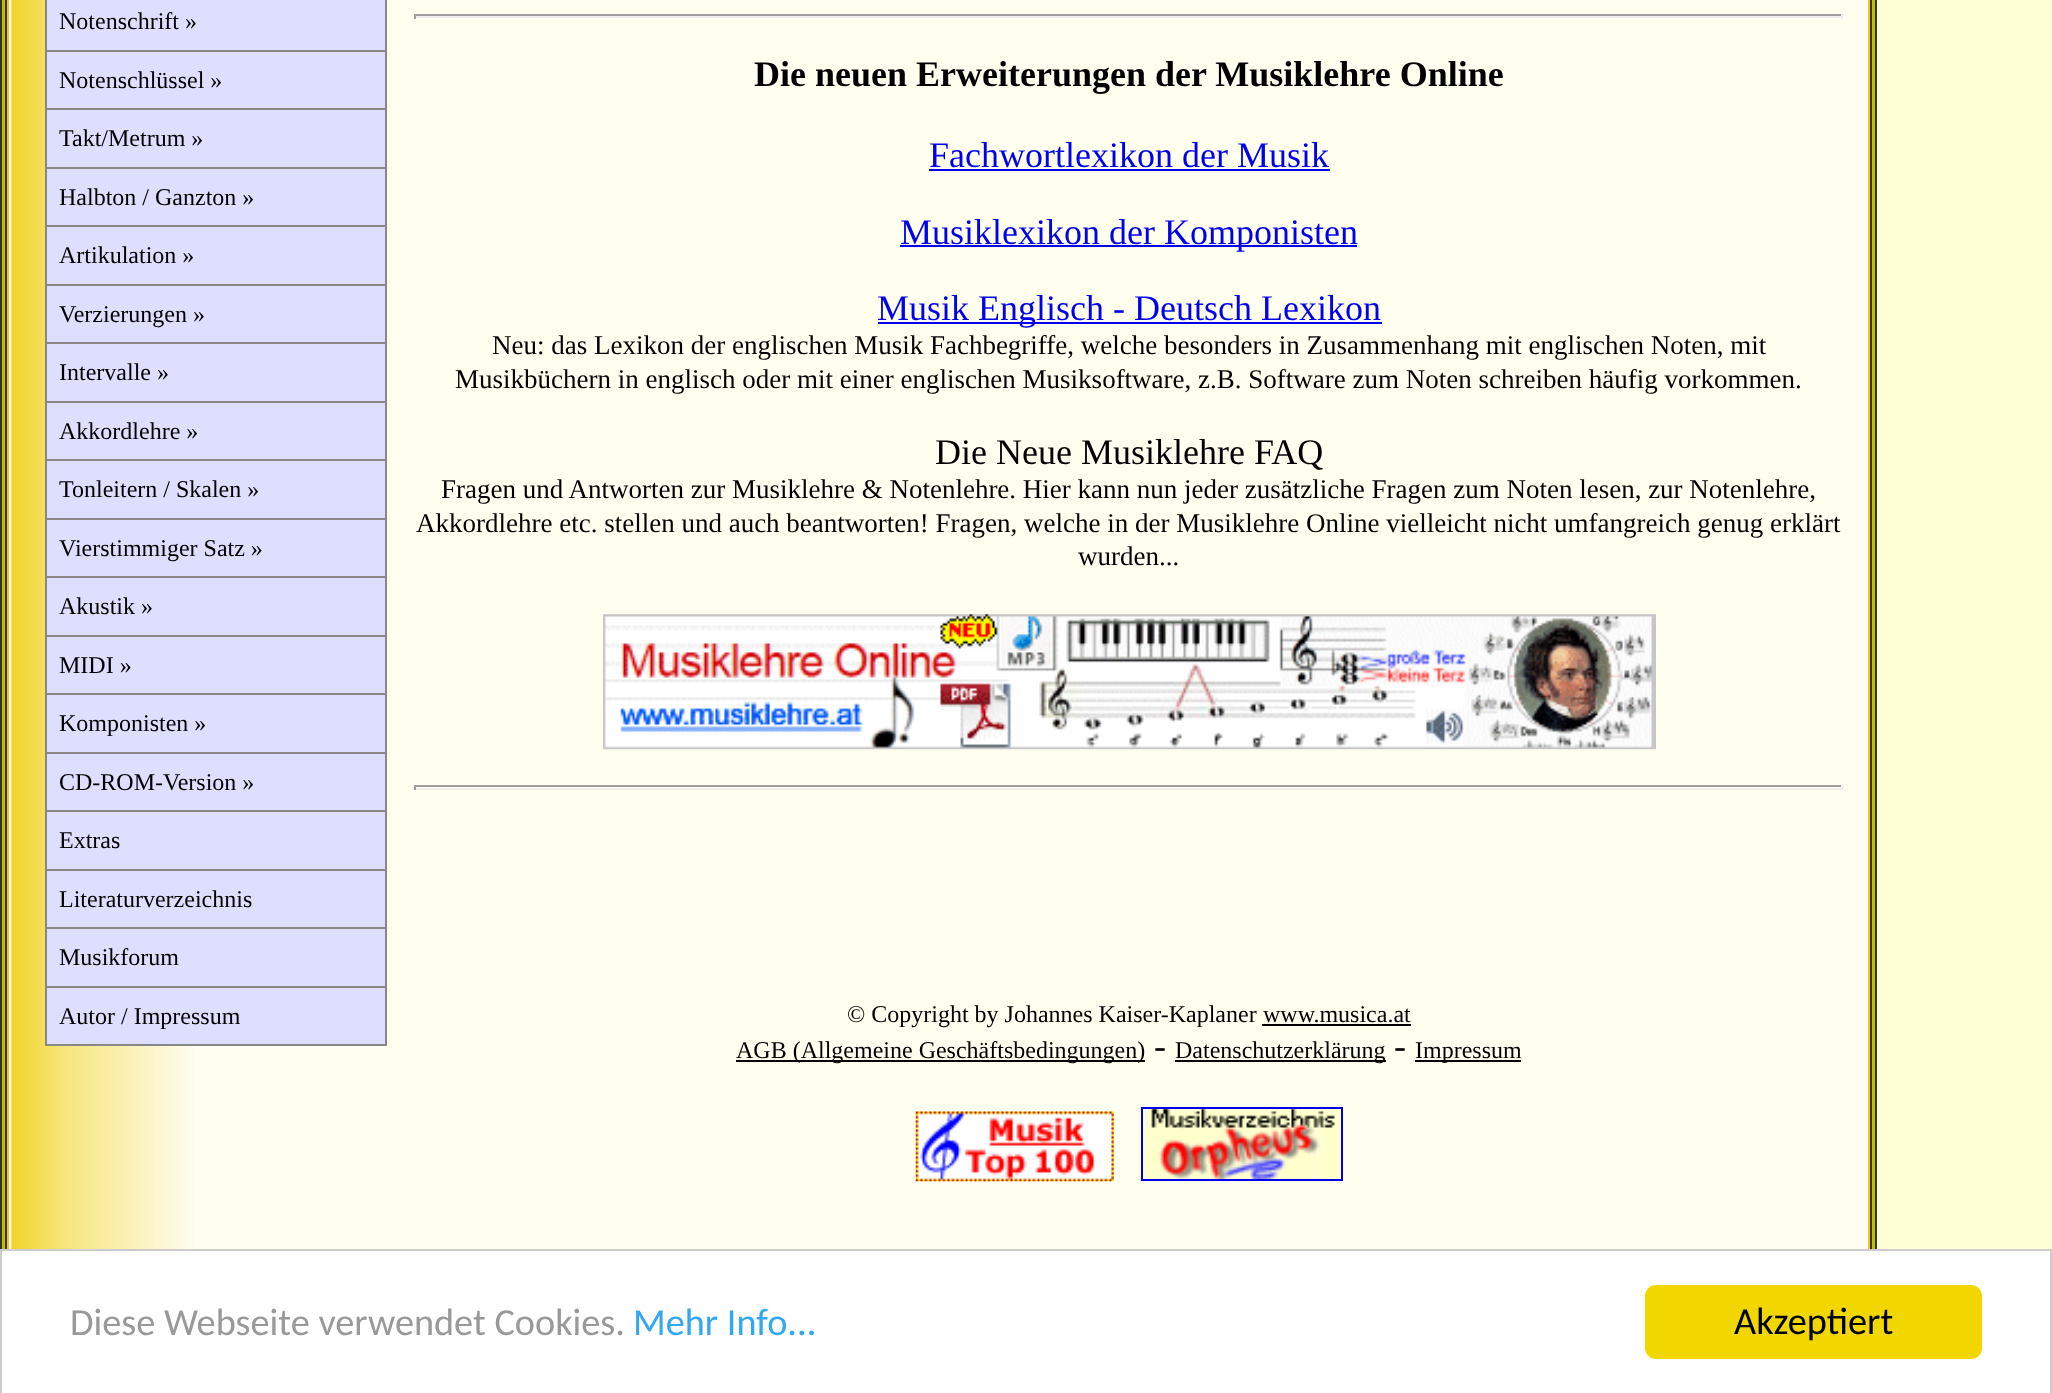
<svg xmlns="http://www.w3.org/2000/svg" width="2052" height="1393">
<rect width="100%" height="100%" fill="#ffffd6"/>
<rect x="2" width="1873" height="1249" fill="#c0c000"/>
<rect x="1" y="-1" width="1875" height="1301" fill="none" stroke="#333" stroke-width="2"/>
<rect x="7" width="1863" height="1249" fill="#ffc600"/>
<rect x="6" y="-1" width="1865" height="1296" fill="none" stroke="#333" stroke-width="2"/>
<rect x="9" width="1859" height="1249" fill="#fff"/>
<rect x="11" width="1854" height="1249" fill="#fffff0"/>
<image x="11" y="0" width="184" height="1249" href="media/1.png"/>
<rect x="47" width="338" height="1044" fill="#dedeff"/>
<rect x="385" width="2" height="1046" fill="#888"/>
<rect x="45" width="2" height="1046" fill="#888"/>
<rect x="47" y="50" width="338" height="2" fill="#888"/>
<text x="59" y="29" style="font-family:Liberation Serif;font-size:24px;fill:#000">Notenschrift »</text>
<rect x="47" y="108" width="338" height="2" fill="#888"/>
<text x="59" y="88" style="font-family:Liberation Serif;font-size:24px;fill:#000">Notenschlüssel »</text>
<rect x="47" y="167" width="338" height="2" fill="#888"/>
<text x="59" y="146" style="font-family:Liberation Serif;font-size:24px;fill:#000">Takt/Metrum »</text>
<rect x="47" y="225" width="338" height="2" fill="#888"/>
<text x="59" y="205" style="font-family:Liberation Serif;font-size:24px;fill:#000">Halbton / Ganzton »</text>
<rect x="47" y="284" width="338" height="2" fill="#888"/>
<text x="59" y="263" style="font-family:Liberation Serif;font-size:24px;fill:#000">Artikulation »</text>
<rect x="47" y="342" width="338" height="2" fill="#888"/>
<text x="59" y="322" style="font-family:Liberation Serif;font-size:24px;fill:#000">Verzierungen »</text>
<rect x="47" y="401" width="338" height="2" fill="#888"/>
<text x="59" y="380" style="font-family:Liberation Serif;font-size:24px;fill:#000">Intervalle »</text>
<rect x="47" y="459" width="338" height="2" fill="#888"/>
<text x="59" y="439" style="font-family:Liberation Serif;font-size:24px;fill:#000">Akkordlehre »</text>
<rect x="47" y="518" width="338" height="2" fill="#888"/>
<text x="59" y="497" style="font-family:Liberation Serif;font-size:24px;fill:#000">Tonleitern / Skalen »</text>
<rect x="47" y="576" width="338" height="2" fill="#888"/>
<text x="59" y="556" style="font-family:Liberation Serif;font-size:24px;fill:#000">Vierstimmiger Satz »</text>
<rect x="47" y="635" width="338" height="2" fill="#888"/>
<text x="59" y="614" style="font-family:Liberation Serif;font-size:24px;fill:#000">Akustik »</text>
<rect x="47" y="693" width="338" height="2" fill="#888"/>
<text x="59" y="673" style="font-family:Liberation Serif;font-size:24px;fill:#000">MIDI »</text>
<rect x="47" y="752" width="338" height="2" fill="#888"/>
<text x="59" y="731" style="font-family:Liberation Serif;font-size:24px;fill:#000">Komponisten »</text>
<rect x="47" y="810" width="338" height="2" fill="#888"/>
<text x="59" y="790" style="font-family:Liberation Serif;font-size:24px;fill:#000">CD-ROM-Version »</text>
<rect x="47" y="869" width="338" height="2" fill="#888"/>
<text x="59" y="848" style="font-family:Liberation Serif;font-size:24px;fill:#000">Extras</text>
<rect x="47" y="927" width="338" height="2" fill="#888"/>
<text x="59" y="907" style="font-family:Liberation Serif;font-size:24px;fill:#000">Literaturverzeichnis</text>
<rect x="47" y="986" width="338" height="2" fill="#888"/>
<text x="59" y="965" style="font-family:Liberation Serif;font-size:24px;fill:#000">Musikforum</text>
<rect x="47" y="1044" width="338" height="2" fill="#888"/>
<text x="59" y="1024" style="font-family:Liberation Serif;font-size:24px;fill:#000">Autor / Impressum</text>
<rect x="414" y="14" width="1429" height="2" fill="#9f9f9f"/>
<rect x="1841" y="14" width="2" height="5" fill="#eee"/>
<rect x="414" y="16" width="1429" height="2" fill="#eee"/>
<rect x="414" y="14" width="2" height="5" fill="#9f9f9f"/>
<text x="754" y="86" style="font-family:Liberation Serif;font-size:36px;font-weight:bold;fill:#000">Die neuen Erweiterungen der Musiklehre Online</text>
<text x="929" y="167" style="font-family:Liberation Serif;font-size:36px;fill:#00e">Fachwortlexikon der Musik</text>
<rect x="929" y="169" width="401" height="2" fill="#00e"/>
<rect x="900" y="245" width="457" height="2" fill="#00e"/>
<text x="900" y="244" style="font-family:Liberation Serif;font-size:36px;fill:#00e">Musiklexikon der Komponisten</text>
<rect x="878" y="322" width="504" height="2" fill="#00e"/>
<text x="877" y="320" style="font-family:Liberation Serif;font-size:36px;fill:#00e">Musik Englisch - Deutsch Lexikon</text>
<text x="492" y="354" style="font-family:Liberation Serif;font-size:27px;fill:#000">Neu: das Lexikon der englischen Musik Fachbegriffe, welche besonders in Zusammenhang mit englischen Noten, mit</text>
<text x="455" y="388" style="font-family:Liberation Serif;font-size:27px;fill:#000">Musikbüchern in englisch oder mit einer englischen Musiksoftware, z.B. Software zum Noten schreiben häufig vorkommen.</text>
<text x="935" y="464" style="font-family:Liberation Serif;font-size:36px;fill:#000">Die Neue Musiklehre FAQ</text>
<text x="441" y="498" style="font-family:Liberation Serif;font-size:27px;fill:#000">Fragen und Antworten zur Musiklehre &amp; Notenlehre. Hier kann nun jeder zusätzliche Fragen zum Noten lesen, zur Notenlehre,</text>
<text x="416" y="532" style="font-family:Liberation Serif;font-size:27px;fill:#000">Akkordlehre etc. stellen und auch beantworten! Fragen, welche in der Musiklehre Online vielleicht nicht umfangreich genug erklärt</text>
<text x="1078" y="565" style="font-family:Liberation Serif;font-size:27px;fill:#000">wurden...</text>
<image x="603" y="614" width="1053" height="136" href="media/2.png"/>
<rect x="414" y="785" width="1429" height="2" fill="#9f9f9f"/>
<rect x="1841" y="785" width="2" height="5" fill="#eee"/>
<rect x="414" y="788" width="1429" height="2" fill="#eee"/>
<rect x="414" y="785" width="2" height="5" fill="#9f9f9f"/>
<text x="847" y="1022" style="font-family:Liberation Serif;font-size:24px;fill:#000">© Copyright by Johannes Kaiser-Kaplaner</text>
<text x="1263" y="1022" style="font-family:Liberation Serif;font-size:24px;fill:#000">www.musica.at</text>
<rect x="1262" y="1024" width="149" height="2" fill="#000"/>
<rect x="736" y="1060" width="409" height="2" fill="#000"/>
<text x="736" y="1058" style="font-family:Liberation Serif;font-size:24px;fill:#000">AGB (Allgemeine Geschäftsbedingungen)</text>
<text x="1154" y="1058" style="font-family:Liberation Serif;font-size:36px;fill:#000">-</text>
<rect x="1175" y="1060" width="211" height="2" fill="#000"/>
<text x="1175" y="1058" style="font-family:Liberation Serif;font-size:24px;fill:#000">Datenschutzerklärung</text>
<text x="1394" y="1058" style="font-family:Liberation Serif;font-size:36px;fill:#000">-</text>
<rect x="1415" y="1060" width="106" height="2" fill="#000"/>
<text x="1415" y="1058" style="font-family:Liberation Serif;font-size:24px;fill:#000">Impressum</text>
<rect x="1142" y="1108" width="200" height="72" fill="none" stroke="#00e" stroke-width="2"/>
<image x="915" y="1111" width="199" height="71" href="media/3.png"/>
<image x="1143" y="1109" width="198" height="70" href="media/4.png"/>
<rect x="1" y="1250" width="2050" height="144" fill="#fff" stroke="#ccc" stroke-width="2"/>
<text x="70" y="1335" style="font-family:Carlito;font-size:38.25px;fill:#999">Diese Webseite verwendet Cookies.</text>
<text x="633" y="1335" style="font-family:Carlito;font-size:38.25px;fill:#31a8f0">Mehr Info...</text>
<rect x="1645" y="1285" width="337" height="74" rx="11" fill="#f1d600"/>
<text x="1734" y="1334" style="font-family:Carlito;font-size:38.25px;fill:#000">Akzeptiert</text>
</svg>
